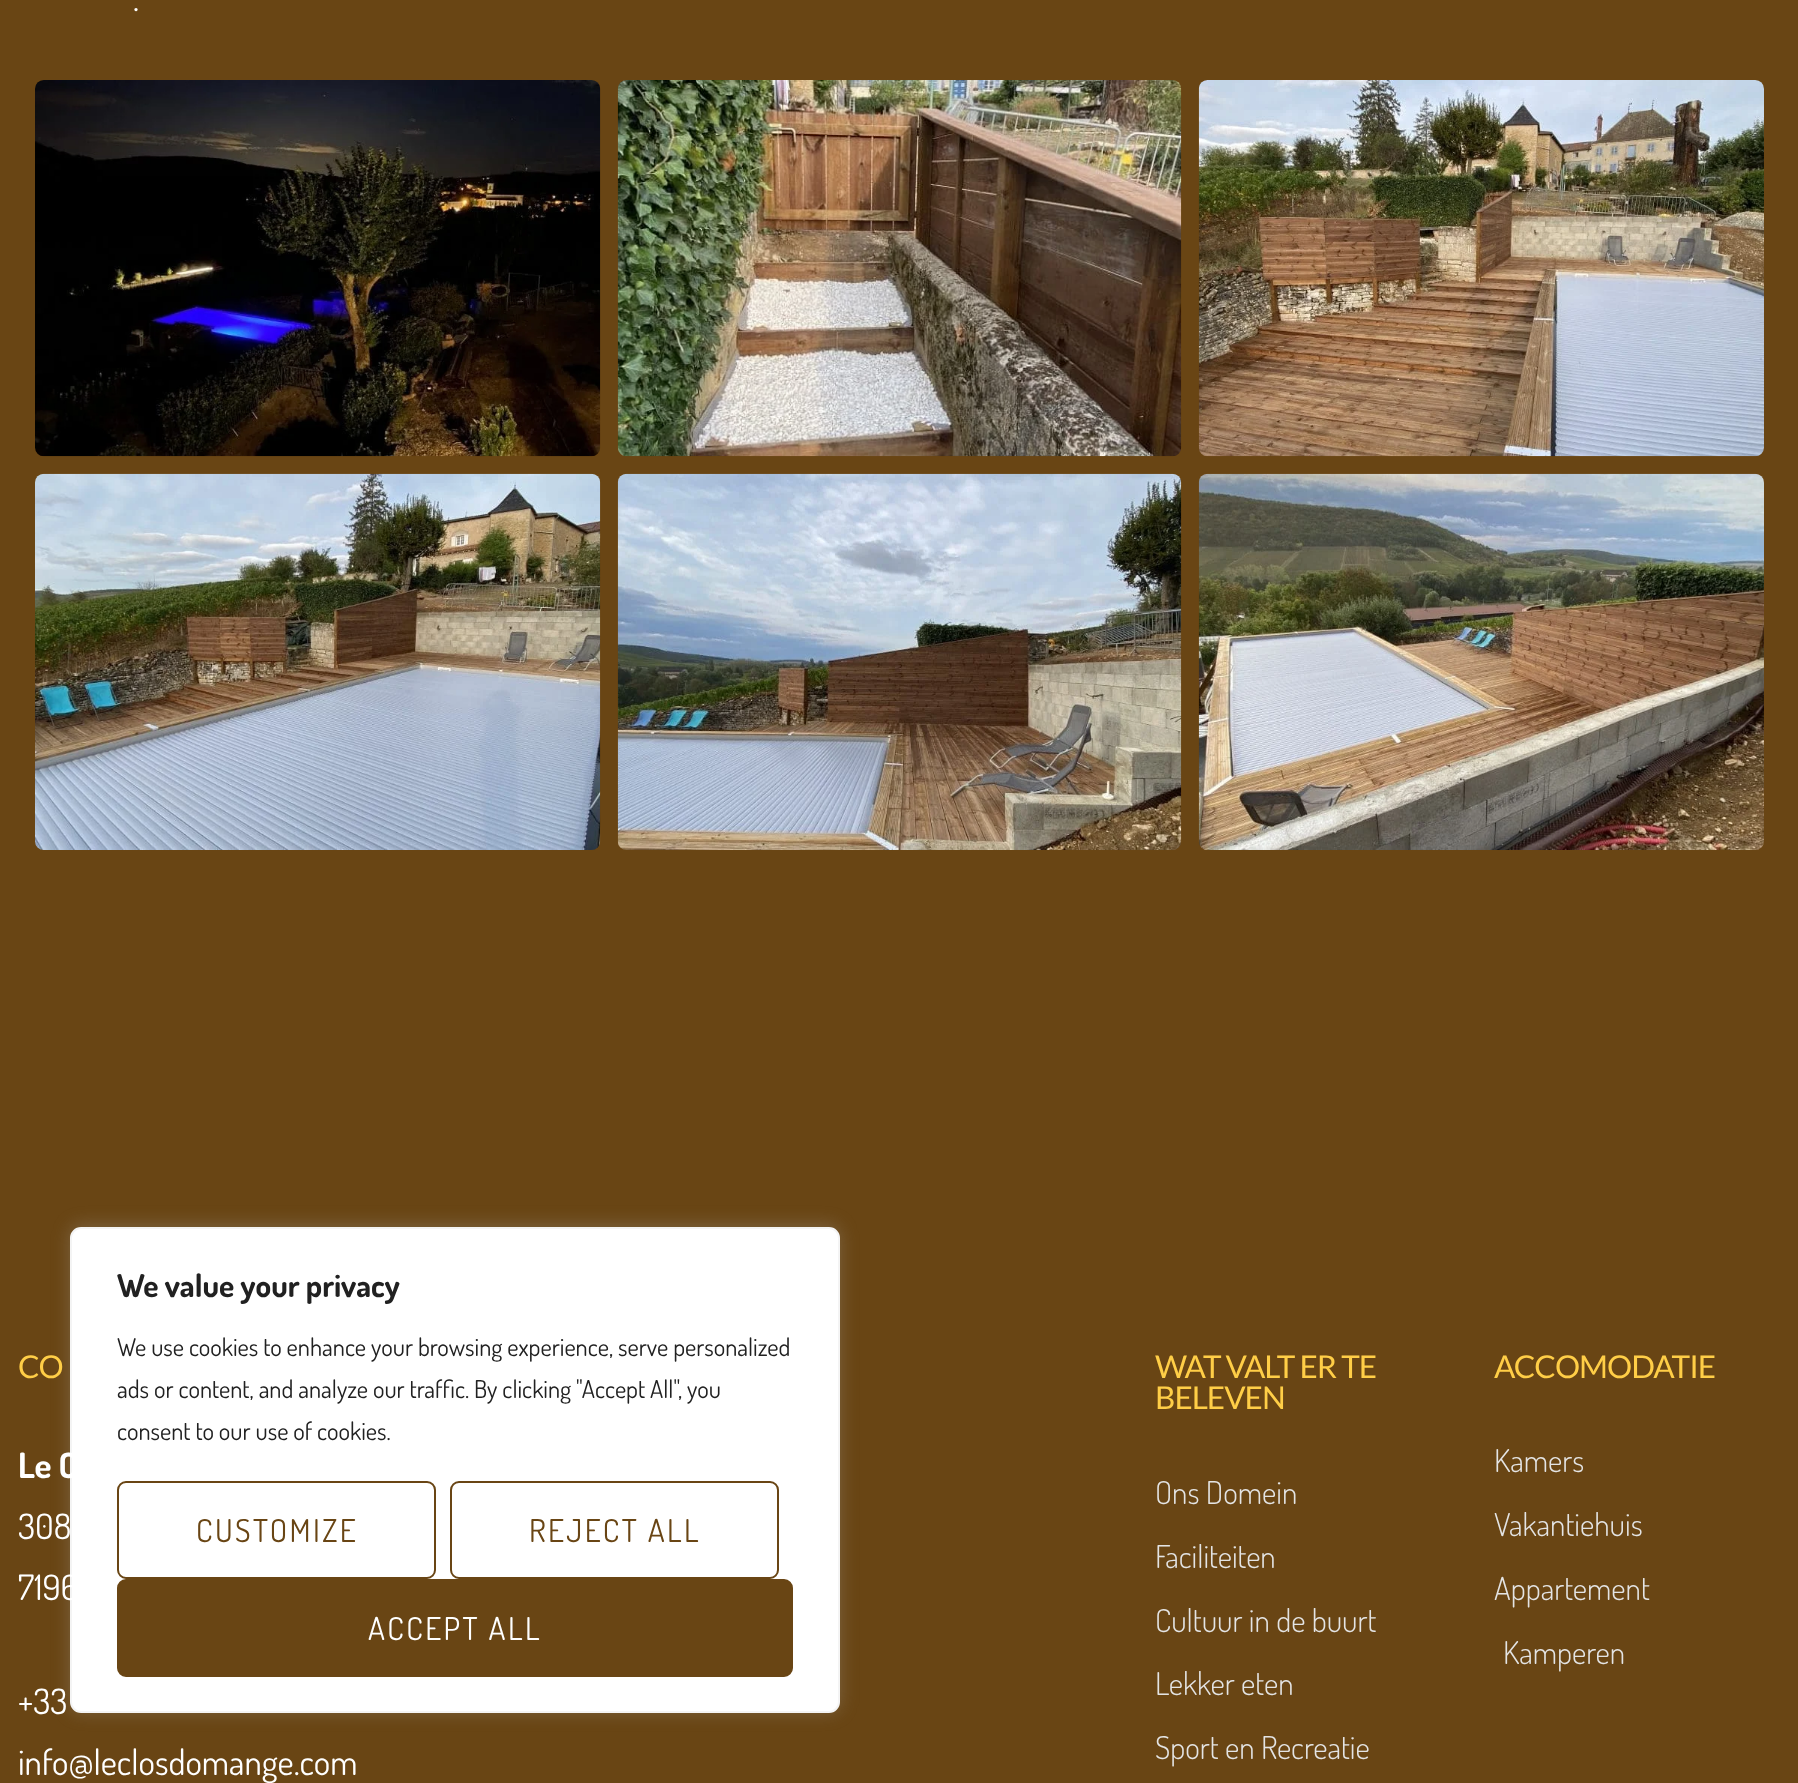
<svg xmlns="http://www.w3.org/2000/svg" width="1798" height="1783">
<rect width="100%" height="100%" fill="#694514"/>
<text x="133" y="11" style="font-family:Dosis;font-size:35px;fill:#fff">.</text>
<image x="35" y="80" width="566" height="377" href="media/1.png"/>
<image x="617" y="80" width="565" height="377" href="media/2.png"/>
<image x="1198" y="80" width="566" height="377" href="media/3.png"/>
<image x="35" y="473" width="566" height="377" href="media/4.png"/>
<image x="617" y="473" width="565" height="377" href="media/5.png"/>
<image x="1198" y="473" width="566" height="377" href="media/6.png"/>
<rect x="70" y="1225" width="770" height="487" rx="11" fill="#acabab4d" filter="blur(9px)"/>
<rect x="71" y="1228" width="768" height="484" rx="10" fill="#fff" stroke="#f4f4f4" stroke-width="2"/>
<text x="117" y="1297" style="font-family:Dosis;font-size:31.5px;font-weight:bold;fill:#212121">We value your privacy</text>
<text x="117" y="1356" style="font-family:Dosis;font-size:24.5px;fill:#212121">We use cookies to enhance your browsing experience, serve personalized</text>
<text x="117" y="1398" style="font-family:Dosis;font-size:24.5px;fill:#212121">ads or content, and analyze our traffic. By clicking "Accept All", you</text>
<text x="117" y="1440" style="font-family:Dosis;font-size:24.5px;fill:#212121">consent to our use of cookies.</text>
<rect x="118" y="1482" width="317" height="96" rx="8" fill="none" stroke="#694514" stroke-width="2"/>
<text x="196" y="1542" style="font-family:Dosis;font-size:31.5px;letter-spacing:2.4px;fill:#694514">CUSTOMIZE</text>
<rect x="451" y="1482" width="327" height="96" rx="8" fill="none" stroke="#694514" stroke-width="2"/>
<text x="529" y="1542" style="font-family:Dosis;font-size:31.5px;letter-spacing:2.4px;fill:#694514">REJECT ALL</text>
<rect x="118" y="1580" width="674" height="96" rx="8" fill="#694514" stroke="#694514" stroke-width="2"/>
<text x="368" y="1640" style="font-family:Dosis;font-size:31.5px;letter-spacing:2.4px;fill:#fff">ACCEPT ALL</text>
<text x="18" y="1378" style="font-family:Lato;font-size:31.5px;letter-spacing:-1px;fill:#ffce47">CO</text>
<text x="18" y="1478" style="font-family:Dosis;font-size:35px;font-weight:bold;fill:#fff">Le C</text>
<text x="18" y="1539" style="font-family:Dosis;font-size:35px;fill:#fff">308</text>
<text x="18" y="1600" style="font-family:Dosis;font-size:35px;fill:#fff">7196</text>
<text x="18" y="1714" style="font-family:Dosis;font-size:35px;fill:#fff">+33</text>
<text x="18" y="1775" style="font-family:Dosis;font-size:35px;fill:#fff">info@leclosdomange.com</text>
<text x="1155" y="1378" style="font-family:Lato;font-size:31.5px;letter-spacing:-1px;fill:#ffce47">WAT VALT ER TE</text>
<text x="1155" y="1409" style="font-family:Lato;font-size:31.5px;letter-spacing:-1px;fill:#ffce47">BELEVEN</text>
<text x="1155" y="1504" style="font-family:Dosis;font-size:31.5px;font-weight:300;fill:#e4e4e4">Ons Domein</text>
<text x="1155" y="1568" style="font-family:Dosis;font-size:31.5px;font-weight:300;fill:#e4e4e4">Faciliteiten</text>
<text x="1155" y="1632" style="font-family:Dosis;font-size:31.5px;font-weight:300;fill:#e4e4e4">Cultuur in de buurt</text>
<text x="1155" y="1695" style="font-family:Dosis;font-size:31.5px;font-weight:300;fill:#e4e4e4">Lekker eten</text>
<text x="1155" y="1759" style="font-family:Dosis;font-size:31.5px;font-weight:300;fill:#e4e4e4">Sport en Recreatie</text>
<text x="1494" y="1378" style="font-family:Lato;font-size:31.5px;letter-spacing:-1px;fill:#ffce47">ACCOMODATIE</text>
<text x="1494" y="1472" style="font-family:Dosis;font-size:31.5px;font-weight:300;fill:#e4e4e4">Kamers</text>
<text x="1494" y="1536" style="font-family:Dosis;font-size:31.5px;font-weight:300;fill:#e4e4e4">Vakantiehuis</text>
<text x="1494" y="1600" style="font-family:Dosis;font-size:31.5px;font-weight:300;fill:#e4e4e4">Appartement</text>
<text x="1503" y="1664" style="font-family:Dosis;font-size:31.5px;font-weight:300;fill:#e4e4e4">Kamperen</text>
</svg>
